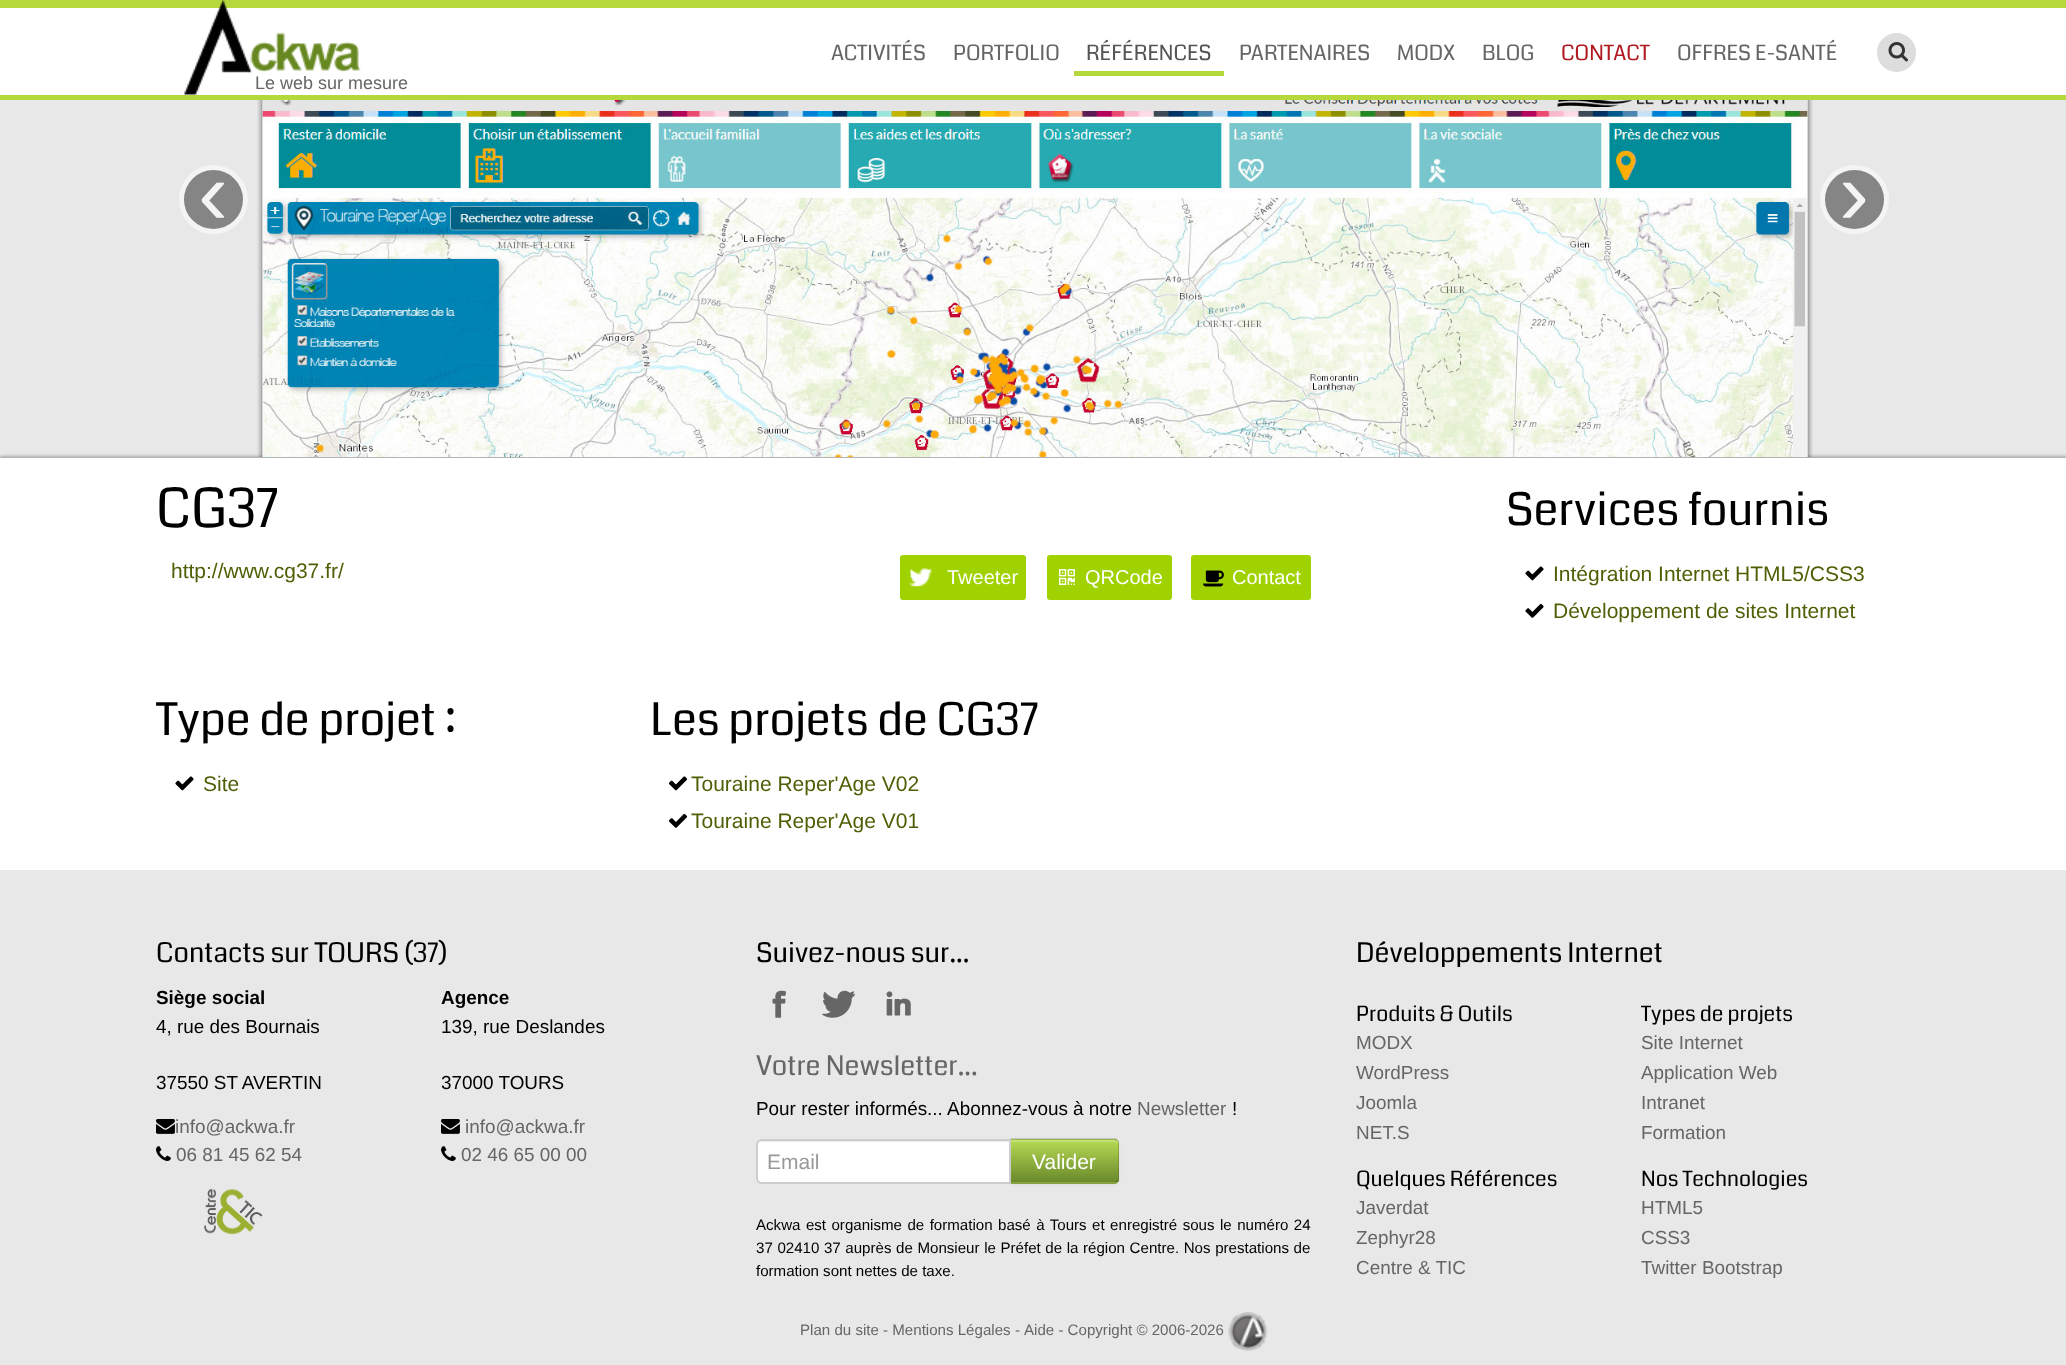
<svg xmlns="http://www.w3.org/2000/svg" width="2066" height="1365">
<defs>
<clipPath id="clip1"><rect x="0" y="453" width="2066" height="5"/></clipPath>
<clipPath id="clip2"><path d="M1010 1139h104c3 0 5 2 5 5v35c0 3-2 5-5 5h-104z"/></clipPath>
<linearGradient id="g1" gradientUnits="userSpaceOnUse" x1="1064" y1="1140" x2="1064" y2="1182"><stop offset="0" stop-color="#b6da54"/><stop offset="1" stop-color="#6a892b"/></linearGradient>
</defs>
<rect width="100%" height="100%" fill="#fff"/>
<rect width="2066" height="8" fill="#b5d83c"/>
<rect y="95" width="2066" height="5" fill="#b5d83c"/>
<text x="831" y="60" style="font-family:Coda;font-size:21px;fill:#666">ACTIVITÉS</text>
<text x="953" y="60" style="font-family:Coda;font-size:21px;fill:#666">PORTFOLIO</text>
<rect x="1074" y="71" width="150" height="5" fill="#b5d83c"/>
<text x="1086" y="60" style="font-family:Coda;font-size:21px;fill:#555">RÉFÉRENCES</text>
<text x="1239" y="60" style="font-family:Coda;font-size:21px;fill:#666">PARTENAIRES</text>
<text x="1397" y="60" style="font-family:Coda;font-size:21px;fill:#666">MODX</text>
<text x="1482" y="60" style="font-family:Coda;font-size:21px;fill:#666">BLOG</text>
<text x="1561" y="60" style="font-family:Coda;font-size:21px;fill:#b01920">CONTACT</text>
<text x="1677" y="60" style="font-family:Coda;font-size:21px;fill:#666">OFFRES E-SANTÉ</text>
<circle cx="1896.5" cy="52.5" r="21" fill="#ddd" stroke="#fff" stroke-width="3"/>
<image x="1888" y="42" width="20" height="20" href="media/1.png"/>
<image x="184" y="0" width="177" height="95" href="media/2.png"/>
<text x="255" y="89" style="font-family:Liberation Sans;font-size:18px;fill:#666">Le web sur mesure</text>
<rect y="100" width="2066" height="358" fill="#e8e8e8"/>
<circle cx="213.5" cy="199.5" r="32" fill="#858585" stroke="#f4f4f4" stroke-width="5"/>
<text x="198" y="224" style="font-family:Liberation Sans;font-size:90px;fill:#f4f4f4">‹</text>
<g clip-path="url(#clip1)">
<rect y="456" width="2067" height="413" fill="#aaa" filter="blur(1.5px)"/>
</g>
<image x="257" y="100" width="1556" height="357" href="media/3.png"/>
<image x="262" y="100" width="1546" height="357" href="media/4.png"/>
<circle cx="1854.5" cy="199.5" r="32" fill="#858585" stroke="#f4f4f4" stroke-width="5"/>
<text x="1839" y="224" style="font-family:Liberation Sans;font-size:90px;fill:#f4f4f4">›</text>
<text x="156" y="527" style="font-family:Coda;font-size:54px;fill:#000">CG37</text>
<text x="171" y="578" style="font-family:Liberation Sans;font-size:21px;fill:#4e6006">http://www.cg37.fr/</text>
<rect x="900" y="555" width="126" height="45" rx="3" fill="#a0d100"/>
<image x="908" y="567" width="24" height="20" href="media/5.png"/>
<text x="947" y="584" style="font-family:Liberation Sans;font-size:20px;fill:#fff">Tweeter</text>
<rect x="1047" y="555" width="125" height="45" rx="3" fill="#a0d100"/>
<image x="1059" y="569" width="16" height="16" href="media/6.png"/>
<text x="1085" y="584" style="font-family:Liberation Sans;font-size:20px;fill:#fff">QRCode</text>
<rect x="1191" y="555" width="120" height="45" rx="3" fill="#a0d100"/>
<image x="1203" y="570" width="21" height="17" href="media/7.png"/>
<text x="1232" y="584" style="font-family:Liberation Sans;font-size:20px;fill:#fff">Contact</text>
<text x="156" y="735" style="font-family:Coda;font-size:45px;fill:#000">Type de projet :</text>
<image x="175" y="776" width="19" height="15" href="media/8.png"/>
<text x="203" y="791" style="font-family:Liberation Sans;font-size:21px;fill:#4e6006">Site</text>
<text x="650" y="735" style="font-family:Coda;font-size:45px;fill:#000">Les projets de CG37</text>
<image x="668" y="776" width="20" height="15" href="media/9.png"/>
<text x="691" y="791" style="font-family:Liberation Sans;font-size:21px;fill:#4e6006">Touraine Reper'Age V02</text>
<image x="668" y="813" width="20" height="15" href="media/10.png"/>
<text x="691" y="828" style="font-family:Liberation Sans;font-size:21px;fill:#4e6006">Touraine Reper'Age V01</text>
<text x="1506" y="525" style="font-family:Coda;font-size:45px;fill:#000">Services fournis</text>
<image x="1525" y="566" width="19" height="15" href="media/8.png"/>
<text x="1553" y="581" style="font-family:Liberation Sans;font-size:21px;fill:#4e6006">Intégration Internet HTML5/CSS3</text>
<image x="1525" y="603" width="19" height="15" href="media/11.png"/>
<text x="1553" y="618" style="font-family:Liberation Sans;font-size:21px;fill:#4e6006">Développement de sites Internet</text>
<rect y="870" width="2066" height="495" fill="#e8e8e8"/>
<text x="156" y="962" style="font-family:Coda;font-size:27px;fill:#000">Contacts sur TOURS (37)</text>
<text x="156" y="1004" style="font-family:Liberation Sans;font-size:18.9px;font-weight:bold;fill:#000">Siège social</text>
<text x="156" y="1033" style="font-family:Liberation Sans;font-size:18.9px;fill:#000">4, rue des Bournais</text>
<text x="156" y="1089" style="font-family:Liberation Sans;font-size:18.9px;fill:#000">37550 ST AVERTIN</text>
<image x="156" y="1119" width="19" height="15" href="media/12.png"/>
<text x="175" y="1133" style="font-family:Liberation Sans;font-size:18.9px;fill:#666">info@ackwa.fr</text>
<image x="156" y="1146" width="15" height="15" href="media/13.png"/>
<text x="176" y="1161" style="font-family:Liberation Sans;font-size:18.9px;fill:#666">06 81 45 62 54</text>
<text x="441" y="1004" style="font-family:Liberation Sans;font-size:18.9px;font-weight:bold;fill:#000">Agence</text>
<text x="441" y="1033" style="font-family:Liberation Sans;font-size:18.9px;fill:#000">139, rue Deslandes</text>
<text x="441" y="1089" style="font-family:Liberation Sans;font-size:18.9px;fill:#000">37000 TOURS</text>
<image x="441" y="1119" width="19" height="15" href="media/12.png"/>
<text x="465" y="1133" style="font-family:Liberation Sans;font-size:18.9px;fill:#666">info@ackwa.fr</text>
<image x="441" y="1146" width="15" height="15" href="media/13.png"/>
<text x="461" y="1161" style="font-family:Liberation Sans;font-size:18.9px;fill:#666">02 46 65 00 00</text>
<image x="204" y="1188" width="59" height="47" href="media/14.png"/>
<text x="756" y="962" style="font-family:Coda;font-size:27px;fill:#000">Suivez-nous sur...</text>
<image x="772" y="990" width="14" height="28" href="media/15.png"/>
<image x="822" y="990" width="33" height="28" href="media/16.png"/>
<image x="886" y="991" width="25" height="25" href="media/17.png"/>
<text x="756" y="1075" style="font-family:Coda;font-size:27px;fill:#666">Votre Newsletter...</text>
<text x="756" y="1115" style="font-family:Liberation Sans;font-size:18.9px;fill:#000">Pour rester informés... Abonnez-vous à notre</text>
<text x="1137" y="1115" style="font-family:Liberation Sans;font-size:18.9px;fill:#666">Newsletter</text>
<text x="1232" y="1115" style="font-family:Liberation Sans;font-size:18.9px;fill:#000">!</text>
<rect x="1010" y="1140" width="109" height="45" rx="5" fill="#0000000d" filter="blur(1.5px)"/>
<path d="M1010 1139h104c3 0 5 2 5 5v35c0 3-2 5-5 5h-104z" fill="#b6da54"/>
<g clip-path="url(#clip2)">
<rect x="1011" y="1140" width="108" height="42" fill="url(#g1)"/>
</g>
<path d="M1011 1142h103c2 0 4 1 4 2v-1c0-2-1-3-3-3h-104z" fill="#ffffff33"/>
<path d="M1011 1140l-1-2h106l2 2l-1 1l-3-1z" fill="#00000026"/>
<path d="M1119 1179v-36c0-1 0-2-1-3l-1 1c1 0 1 1 1 2v36c0 1 0 2-1 2l1 1z" fill="#00000026"/>
<path d="M1010 1184l1-2h103l3-1l1 1l-2 2z" fill="#00000040"/>
<path d="M761 1139h250v45h-250c-3 0-5-2-5-5v-35c0-3 2-5 5-5z" fill="#fff"/>
<path d="M760 1142h250v-2h-249c-2 0-3 2-3 4c0-1 1-2 2-2z" fill="#ececec"/>
<path d="M761 1140h249v43h-249c-2 0-4-2-4-4v-35c0-2 2-4 4-4z" fill="none" stroke="#ccc" stroke-width="2"/>
<text x="767" y="1169" style="font-family:Liberation Sans;font-size:21px;fill:#999">Email</text>
<text x="1032" y="1169" style="font-family:Liberation Sans;font-size:21px;fill:#fff">Valider</text>
<text x="756" y="1230" word-spacing="1.25" style="font-family:Liberation Sans;font-size:15.1px;fill:#000">Ackwa est organisme de formation basé à Tours et enregistré sous le numéro 24</text>
<text x="756" y="1253" word-spacing="0.4" style="font-family:Liberation Sans;font-size:15.1px;fill:#000">37 02410 37 auprès de Monsieur le Préfet de la région Centre. Nos prestations de</text>
<text x="756" y="1276" style="font-family:Liberation Sans;font-size:15.1px;fill:#000">formation sont nettes de taxe.</text>
<text x="1356" y="962" style="font-family:Coda;font-size:27px;fill:#000">Développements Internet</text>
<text x="1356" y="1021" style="font-family:Coda;font-size:21px;fill:#000">Produits &amp; Outils</text>
<text x="1356" y="1049" style="font-family:Liberation Sans;font-size:18.9px;fill:#666">MODX</text>
<text x="1356" y="1079" style="font-family:Liberation Sans;font-size:18.9px;fill:#666">WordPress</text>
<text x="1356" y="1109" style="font-family:Liberation Sans;font-size:18.9px;fill:#666">Joomla</text>
<text x="1356" y="1139" style="font-family:Liberation Sans;font-size:18.9px;fill:#666">NET.S</text>
<text x="1641" y="1021" style="font-family:Coda;font-size:21px;fill:#000">Types de projets</text>
<text x="1641" y="1049" style="font-family:Liberation Sans;font-size:18.9px;fill:#666">Site Internet</text>
<text x="1641" y="1079" style="font-family:Liberation Sans;font-size:18.9px;fill:#666">Application Web</text>
<text x="1641" y="1109" style="font-family:Liberation Sans;font-size:18.9px;fill:#666">Intranet</text>
<text x="1641" y="1139" style="font-family:Liberation Sans;font-size:18.9px;fill:#666">Formation</text>
<text x="1356" y="1186" style="font-family:Coda;font-size:21px;fill:#000">Quelques Références</text>
<text x="1356" y="1214" style="font-family:Liberation Sans;font-size:18.9px;fill:#666">Javerdat</text>
<text x="1356" y="1244" style="font-family:Liberation Sans;font-size:18.9px;fill:#666">Zephyr28</text>
<text x="1356" y="1274" style="font-family:Liberation Sans;font-size:18.9px;fill:#666">Centre &amp; TIC</text>
<text x="1641" y="1186" style="font-family:Coda;font-size:21px;fill:#000">Nos Technologies</text>
<text x="1641" y="1214" style="font-family:Liberation Sans;font-size:18.9px;fill:#666">HTML5</text>
<text x="1641" y="1244" style="font-family:Liberation Sans;font-size:18.9px;fill:#666">CSS3</text>
<text x="1641" y="1274" style="font-family:Liberation Sans;font-size:18.9px;fill:#666">Twitter Bootstrap</text>
<text x="800" y="1335" style="font-family:Liberation Sans;font-size:15.1px;fill:#666">Plan du site - Mentions Légales</text>
<text x="1015" y="1335" style="font-family:Liberation Sans;font-size:15.1px;fill:#666">-</text>
<text x="1024" y="1335" style="font-family:Liberation Sans;font-size:15.1px;fill:#666">Aide - Copyright © 2006-2026</text>
<image x="1228" y="1312" width="40" height="39" href="media/18.png"/>
</svg>
